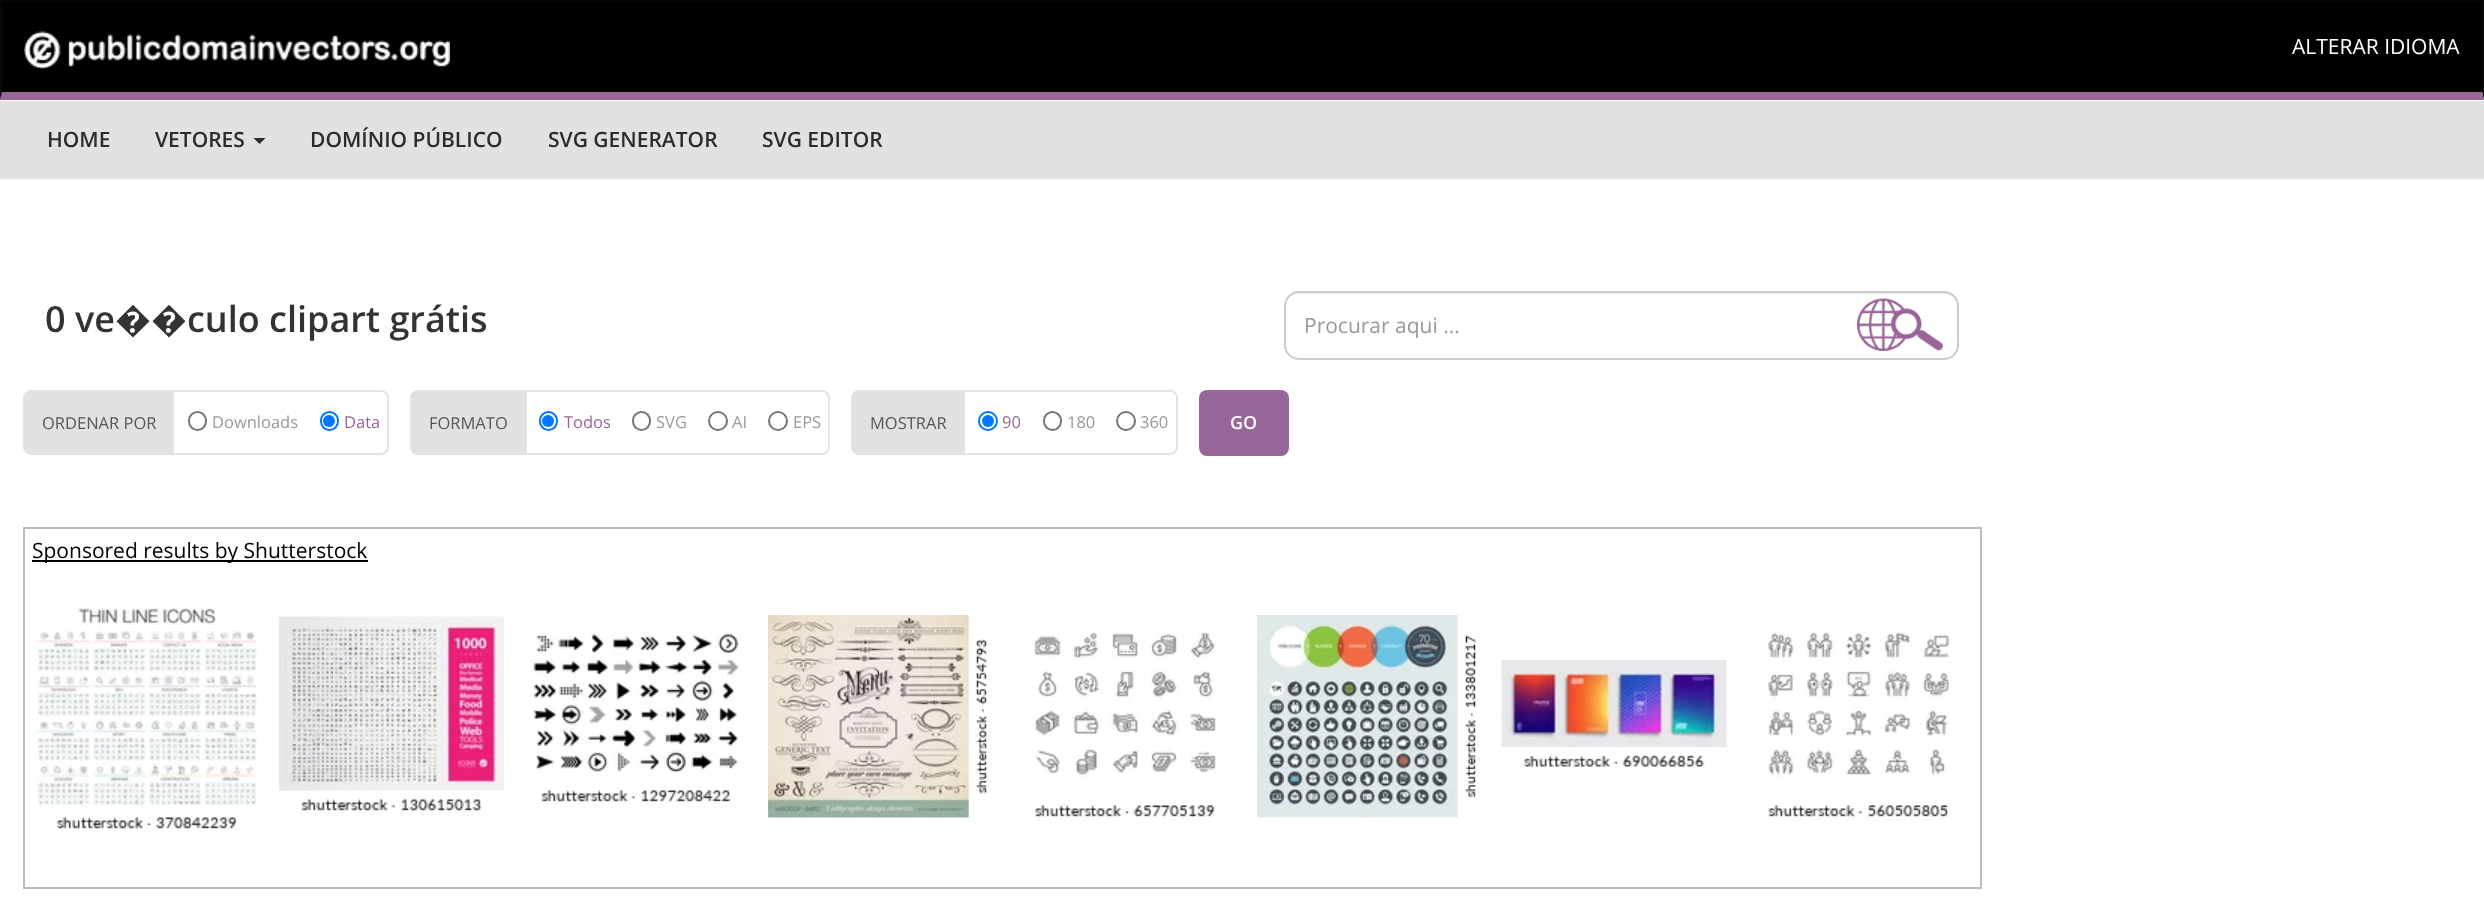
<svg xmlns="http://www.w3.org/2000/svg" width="2484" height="911">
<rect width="100%" height="100%" fill="#fff"/>
<rect x="2" y="2" width="2480" height="90" fill="#000"/>
<rect width="2484" height="2" fill="#080808"/>
<path d="M2484 0v100l-2-8v-90z" fill="#080808"/>
<path d="M2484 100h-2484l2-8h2480z" fill="#969"/>
<path d="M0 100v-100l2 2v90z" fill="#080808"/>
<image x="24" y="31" width="426" height="38" href="media/1.png"/>
<text x="2292" y="54" style="font-family:Open Sans;font-size:21px;fill:#fff">ALTERAR IDIOMA</text>
<rect y="101" width="2484" height="78" fill="#e2e2e2"/>
<text x="47" y="147" style="font-family:Open Sans;font-size:21px;font-weight:600;fill:#2c2c2c">HOME</text>
<text x="155" y="147" style="font-family:Open Sans;font-size:21px;font-weight:600;fill:#2c2c2c">VETORES</text>
<path d="M253.5 138h12l-6 6z" fill="#2c2c2c"/>
<text x="310" y="147" style="font-family:Open Sans;font-size:21px;font-weight:600;fill:#2c2c2c">DOMÍNIO PÚBLICO</text>
<text x="548" y="147" style="font-family:Open Sans;font-size:21px;font-weight:600;fill:#2c2c2c">SVG GENERATOR</text>
<text x="762" y="147" style="font-family:Open Sans;font-size:21px;font-weight:600;fill:#2c2c2c">SVG EDITOR</text>
<text x="45" y="332" style="font-family:Open Sans;font-size:36px;font-weight:600;fill:#333">0 ve��culo clipart grátis</text>
<image x="1857" y="298" width="86" height="53" href="media/2.png"/>
<path d="M1299 294h645c7 0 14 6 14 14v-1c0-8-6-14-14-14h-644c-8 0-14 6-14 14v1c0-8 6-14 13-14z" fill="#ececec"/>
<rect x="1285" y="292" width="673" height="67" rx="14" fill="none" stroke="#ccc" stroke-width="2"/>
<text x="1304" y="333" style="font-family:Open Sans;font-size:21px;fill:#999">Procurar aqui ...</text>
<rect x="24" y="391" width="364" height="63" rx="7" fill="none" stroke="#e2e2e2" stroke-width="2"/>
<path d="M30 392h144v61h-144c-3.5 0-6-2.5-6-6v-49c0-3.5 2.5-6 6-6z" fill="#e2e2e2"/>
<text x="42" y="429" style="font-family:Open Sans;font-size:16.5px;fill:#555">ORDENAR POR</text>
<rect x="189" y="412" width="17" height="18" rx="8.5" fill="none" stroke="#767676" stroke-width="2"/>
<text x="212" y="428" style="font-family:Open Sans;font-size:16.5px;fill:#999">Downloads</text>
<rect x="321" y="412" width="17" height="18" rx="8.5" fill="none" stroke="#0075ff" stroke-width="2"/>
<circle cx="329" cy="421" r="6" fill="#0075ff"/>
<text x="344" y="428" style="font-family:Open Sans;font-size:16.5px;fill:#969">Data</text>
<rect x="411" y="391" width="418" height="63" rx="7" fill="none" stroke="#e2e2e2" stroke-width="2"/>
<path d="M417 392h110v61h-110c-3.5 0-6-2.5-6-6v-49c0-3.5 2.5-6 6-6z" fill="#e2e2e2"/>
<text x="429" y="429" style="font-family:Open Sans;font-size:16.5px;fill:#555">FORMATO</text>
<rect x="540" y="412" width="17" height="18" rx="8.5" fill="none" stroke="#0075ff" stroke-width="2"/>
<circle cx="548" cy="421" r="6" fill="#0075ff"/>
<text x="564" y="428" style="font-family:Open Sans;font-size:16.5px;fill:#969">Todos</text>
<rect x="633" y="412" width="17" height="18" rx="8.5" fill="none" stroke="#767676" stroke-width="2"/>
<text x="656" y="428" style="font-family:Open Sans;font-size:16.5px;fill:#999">SVG</text>
<circle cx="718" cy="421" r="9" fill="none" stroke="#767676" stroke-width="2"/>
<text x="732" y="428" style="font-family:Open Sans;font-size:16.5px;fill:#999">AI</text>
<circle cx="778" cy="421" r="9" fill="none" stroke="#767676" stroke-width="2"/>
<text x="793" y="428" style="font-family:Open Sans;font-size:16.5px;fill:#999">EPS</text>
<rect x="852" y="391" width="325" height="63" rx="7" fill="none" stroke="#e2e2e2" stroke-width="2"/>
<path d="M858 392h107v61h-107c-3.5 0-6-2.5-6-6v-49c0-3.5 2.5-6 6-6z" fill="#e2e2e2"/>
<text x="870" y="429" style="font-family:Open Sans;font-size:16.5px;fill:#555">MOSTRAR</text>
<circle cx="988" cy="421" r="9" fill="none" stroke="#0075ff" stroke-width="2"/>
<circle cx="988" cy="421" r="6" fill="#0075ff"/>
<text x="1002" y="428" style="font-family:Open Sans;font-size:16.5px;fill:#969">90</text>
<rect x="1044" y="412" width="17" height="18" rx="8.5" fill="none" stroke="#767676" stroke-width="2"/>
<text x="1067" y="428" style="font-family:Open Sans;font-size:16.5px;fill:#999">180</text>
<circle cx="1126" cy="421" r="9" fill="none" stroke="#767676" stroke-width="2"/>
<text x="1140" y="428" style="font-family:Open Sans;font-size:16.5px;fill:#999">360</text>
<rect x="1199" y="390" width="90" height="66" rx="8" fill="#969"/>
<text x="1230" y="429" style="font-family:Open Sans;font-size:18px;font-weight:600;fill:#fff">GO</text>
<rect x="23" y="527" width="1959" height="2" fill="#bbb"/>
<rect x="1980" y="527" width="2" height="361" fill="#bbb"/>
<rect x="23" y="527" width="2" height="75" fill="#bbb"/>
<rect x="32" y="560" width="336" height="2" fill="#000"/>
<text x="32" y="558" style="font-family:Open Sans;font-size:21px;fill:#000">Sponsored results by Shutterstock</text>
<rect x="23" y="887" width="1959" height="2" fill="#bbb"/>
<rect x="23" y="602" width="2" height="286" fill="#bbb"/>
<image x="35" y="607" width="222" height="222" href="media/3.png"/>
<image x="279" y="616" width="225" height="198" href="media/4.png"/>
<image x="530" y="630" width="210" height="174" href="media/5.png"/>
<image x="768" y="615" width="219" height="203" href="media/6.png"/>
<image x="1031" y="632" width="185" height="189" href="media/7.png"/>
<image x="1257" y="615" width="219" height="203" href="media/8.png"/>
<image x="1501" y="660" width="226" height="108" href="media/9.png"/>
<image x="1764" y="630" width="186" height="191" href="media/10.png"/>
</svg>
